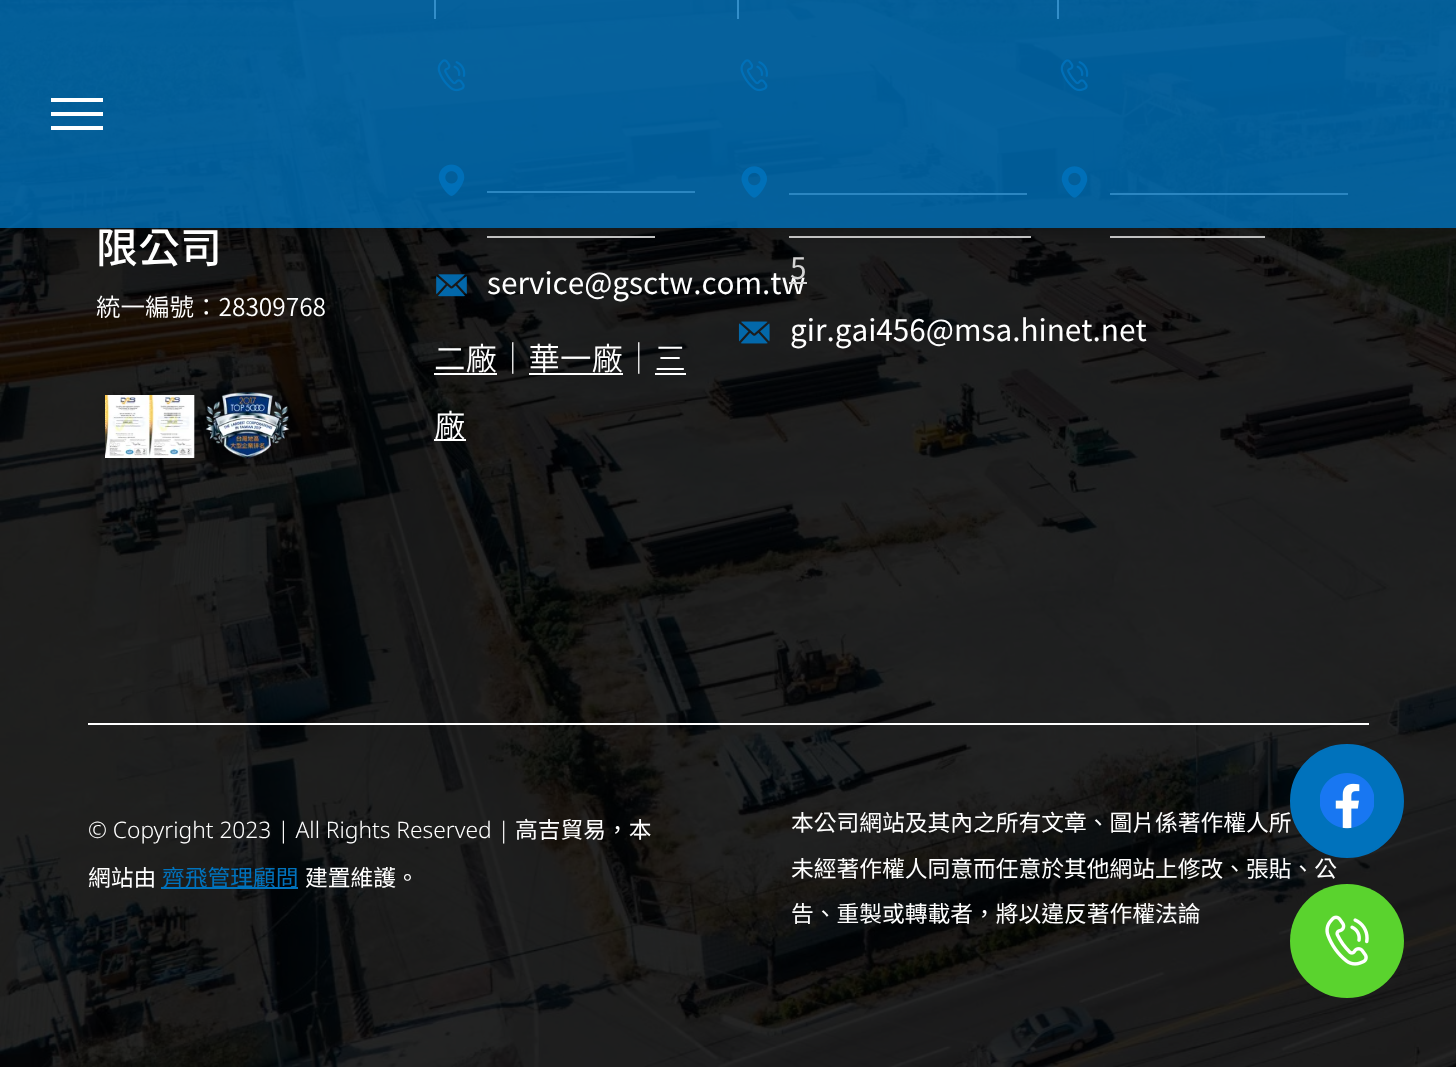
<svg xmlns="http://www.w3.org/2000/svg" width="1456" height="1067">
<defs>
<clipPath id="clip1"><path d="M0 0h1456v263h-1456zm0 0h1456v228h-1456z" clip-rule="evenodd"/></clipPath>
</defs>
<rect width="100%" height="100%" fill="#fff"/>
<image x="0" y="0" width="1456" height="1067" href="media/1.png"/>
<rect x="1057" width="2" height="19" fill="#fff"/>
<image x="1060" y="59" width="29" height="33" href="media/2.png"/>
<image x="1061" y="166" width="27" height="32" href="media/3.png"/>
<rect x="1110" y="193" width="238" height="2" fill="#d4d4d4"/>
<rect x="1110" y="236" width="155" height="2" fill="#d4d4d4"/>
<rect x="434" width="2" height="19" fill="#fff"/>
<image x="437" y="59" width="29" height="33" href="media/6.png"/>
<image x="438" y="164" width="27" height="32" href="media/7.png"/>
<rect x="487" y="191" width="208" height="2" fill="#d4d4d4"/>
<rect x="487" y="236" width="168" height="2" fill="#d4d4d4"/>
<rect x="737" width="2" height="19" fill="#fff"/>
<image x="740" y="59" width="28" height="33" href="media/9.png"/>
<image x="741" y="166" width="26" height="32" href="media/10.png"/>
<rect x="789" y="193" width="238" height="2" fill="#d4d4d4"/>
<rect x="789" y="236" width="242" height="2" fill="#d4d4d4"/>
<g clip-path="url(#clip1)">
<rect y="5" width="1456" height="228" fill="#00000040" filter="blur(9.5px)"/>
</g>
<rect width="1456" height="228" fill="#0072bccc"/>
<rect x="51" y="98" width="52" height="4" fill="#fff"/>
<rect x="51" y="112" width="52" height="4" fill="#fff"/>
<rect x="51" y="126" width="52" height="4" fill="#fff"/>
<text x="96" y="263" style="font-family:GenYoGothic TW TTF;font-size:42px;font-weight:500;fill:#fff">限公司</text>
<text x="96" y="316" style="font-family:GenYoGothic TW TTF;font-size:24.5px;font-weight:300;fill:#fff">統一編號：28309768</text>
<image x="105" y="395" width="90" height="63" href="media/4.png"/>
<image x="205" y="392" width="85" height="68" href="media/5.png"/>
<image x="436" y="274" width="31" height="23" href="media/8.png"/>
<text x="487" y="294" style="font-family:GenYoGothic TW TTF;font-size:29.75px;fill:#fff">service@gsctw.com.tw</text>
<rect x="434" y="373" width="63" height="2" fill="#fff"/>
<text x="434" y="370" style="font-family:GenYoGothic TW TTF;font-size:31.5px;font-weight:300;fill:#fff">二廠｜華一廠｜三</text>
<rect x="529" y="373" width="94" height="2" fill="#fff"/>
<rect x="434" y="439" width="32" height="2" fill="#fff"/>
<text x="434" y="437" style="font-family:GenYoGothic TW TTF;font-size:31.5px;font-weight:300;fill:#fff">廠</text>
<rect x="655" y="373" width="31" height="2" fill="#fff"/>
<text x="790" y="279" style="font-family:GenYoGothic TW TTF;font-size:29.75px;fill:#d4d4d4">5</text>
<rect x="789" y="282" width="18" height="2" fill="#d4d4d4"/>
<image x="738" y="321" width="32" height="23" href="media/11.png"/>
<text x="790" y="341" style="font-family:GenYoGothic TW TTF;font-size:29.75px;fill:#fff">gir.gai456@msa.hinet.net</text>
<rect x="88" y="723" width="1281" height="2" fill="#fff"/>
<text x="88" y="838" style="font-family:Noto Sans;font-size:22.75px;font-weight:300;fill:#fff">© Copyright 2023 | All Rights Reserved |</text>
<text x="515" y="838" style="font-family:Noto Sans CJK TC;font-size:22.75px;fill:#fff">高吉貿易，本</text>
<text x="88" y="886" style="font-family:Noto Sans CJK TC;font-size:22.75px;fill:#fff">網站由</text>
<rect x="161" y="887" width="137" height="2" fill="#0072bc"/>
<text x="162" y="886" style="font-family:Noto Sans CJK TC;font-size:22.75px;fill:#0072bc">齊飛管理顧問</text>
<text x="305" y="886" style="font-family:Noto Sans CJK TC;font-size:22.75px;fill:#fff">建置維護。</text>
<text x="791" y="831" style="font-family:Noto Sans CJK TC;font-size:22.75px;fill:#fff">本公司網站及其內之所有文章、圖片係著作權人所</text>
<text x="791" y="877" style="font-family:Noto Sans CJK TC;font-size:22.75px;fill:#fff">未經著作權人同意而任意於其他網站上修改、張貼、公</text>
<text x="791" y="922" style="font-family:Noto Sans CJK TC;font-size:22.75px;fill:#fff">告、重製或轉載者，將以違反著作權法論</text>
<circle cx="1347" cy="801" r="56" fill="#0072bc" stroke="#0072bc" stroke-width="2"/>
<image x="1320" y="773" width="54" height="56" href="media/12.png"/>
<circle cx="1347" cy="941" r="57" fill="#5ad32e"/>
<image x="1325" y="915" width="44" height="51" href="media/13.png"/>
</svg>
